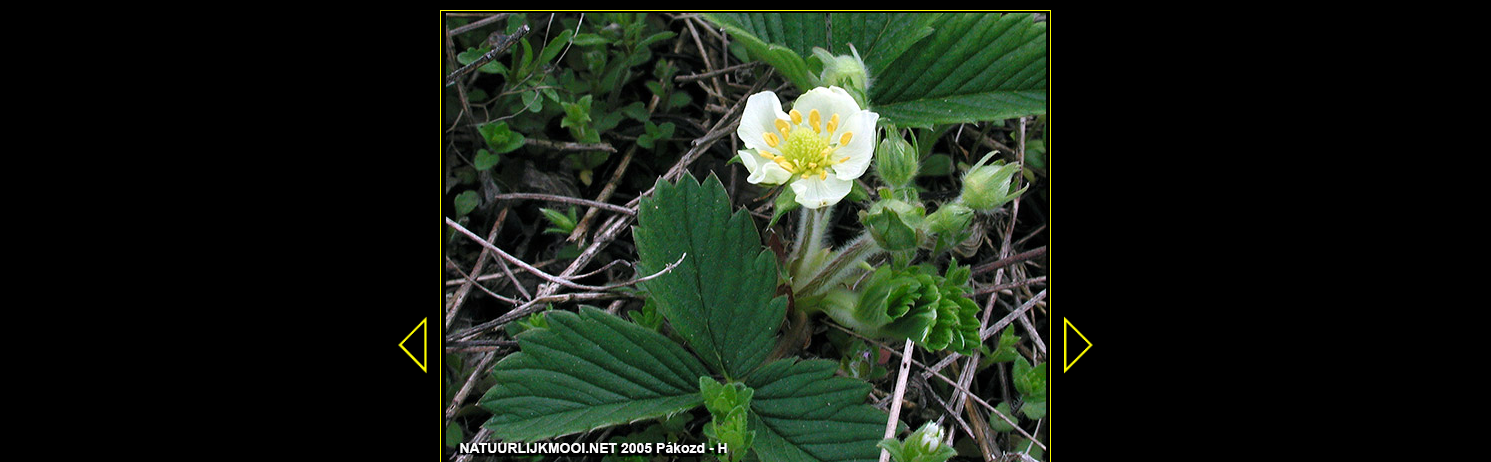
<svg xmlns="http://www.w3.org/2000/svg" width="1491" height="462">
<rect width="100%" height="100%" fill="#000"/>
<image x="398" y="316" width="29" height="58" href="media/1.png"/>
<rect x="440.5" y="10.5" width="610" height="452" fill="none" stroke="#ff0"/>
<image x="446" y="13" width="600" height="449" href="media/2.png"/>
<image x="1064" y="316" width="29" height="58" href="media/3.png"/>
</svg>
